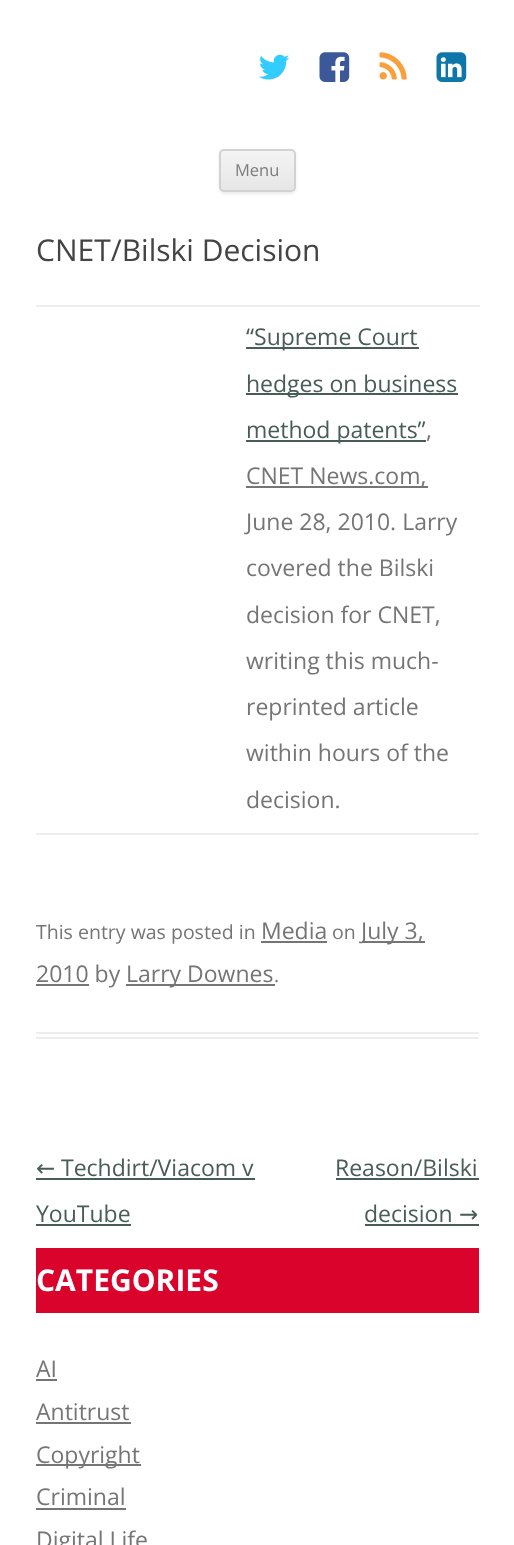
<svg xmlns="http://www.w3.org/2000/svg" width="514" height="1545">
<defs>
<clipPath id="clip1"><rect x="219" y="149" width="77" height="43" rx="5"/></clipPath>
<linearGradient id="g1" gradientUnits="userSpaceOnUse" x1="257" y1="150" x2="257" y2="191"><stop offset="0" stop-color="#f4f4f4"/><stop offset="1" stop-color="#e6e6e6"/></linearGradient>
</defs>
<rect width="100%" height="100%" fill="#fff"/>
<image x="259" y="54" width="31" height="26" href="media/1.png"/>
<image x="319" y="52" width="31" height="30" href="media/2.png"/>
<image x="379" y="52" width="28" height="28" href="media/3.png"/>
<image x="436" y="52" width="31" height="30" href="media/4.png"/>
<rect x="219" y="150" width="77" height="44" rx="5" fill="#4040401a" filter="blur(1.5px)"/>
<g clip-path="url(#clip1)">
<rect x="219" y="150" width="77" height="41" fill="url(#g1)"/>
</g>
<rect x="220" y="150" width="75" height="41" rx="4" fill="none" stroke="#d2d2d2" stroke-width="2"/>
<text x="235" y="176" style="font-family:Open Sans;font-size:16.5px;fill:#7c7c7c">Menu</text>
<rect x="36" y="1032" width="443" height="2" fill="#ededed"/>
<rect x="36" y="1037" width="443" height="2" fill="#ededed"/>
<text x="36" y="261" style="font-family:Open Sans;font-size:30px;fill:#444">CNET/Bilski Decision</text>
<rect x="36" y="833" width="443" height="2" fill="#ededed"/>
<rect x="36" y="305" width="444" height="2" fill="#ededed"/>
<rect x="246" y="347" width="173" height="2" fill="#485c58"/>
<text x="246" y="345" style="font-family:Open Sans;font-size:23px;fill:#485c58">“Supreme Court</text>
<rect x="246" y="393" width="212" height="2" fill="#485c58"/>
<text x="246" y="392" style="font-family:Open Sans;font-size:23px;fill:#485c58">hedges on business</text>
<rect x="246" y="440" width="180" height="2" fill="#485c58"/>
<text x="246" y="438" style="font-family:Open Sans;font-size:23px;fill:#485c58">method patents”</text>
<text x="426" y="438" style="font-family:Open Sans;font-size:23px;fill:#757575">,</text>
<rect x="246" y="486" width="182" height="2" fill="#757575"/>
<text x="246" y="484" style="font-family:Open Sans;font-size:23px;fill:#757575">CNET News.com,</text>
<text x="246" y="530" style="font-family:Open Sans;font-size:23px;fill:#757575">June 28, 2010. Larry</text>
<text x="246" y="576" style="font-family:Open Sans;font-size:23px;fill:#757575">covered the Bilski</text>
<text x="246" y="623" style="font-family:Open Sans;font-size:23px;fill:#757575">decision for CNET,</text>
<text x="246" y="669" style="font-family:Open Sans;font-size:23px;fill:#757575">writing this much-</text>
<text x="246" y="715" style="font-family:Open Sans;font-size:23px;fill:#757575">reprinted article</text>
<text x="246" y="761" style="font-family:Open Sans;font-size:23px;fill:#757575">within hours of the</text>
<text x="246" y="808" style="font-family:Open Sans;font-size:23px;fill:#757575">decision.</text>
<text x="36" y="939" style="font-family:Open Sans;font-size:19.5px;fill:#757575">This entry was posted in</text>
<text x="261" y="939" style="font-family:Open Sans;font-size:23px;fill:#757575">Media</text>
<rect x="261" y="941" width="66" height="2" fill="#757575"/>
<text x="332" y="939" style="font-family:Open Sans;font-size:19.5px;fill:#757575">on</text>
<rect x="362" y="941" width="63" height="2" fill="#757575"/>
<text x="361" y="939" style="font-family:Open Sans;font-size:23px;fill:#757575">July 3,</text>
<rect x="36" y="984" width="53" height="2" fill="#757575"/>
<text x="36" y="982" style="font-family:Open Sans;font-size:23px;fill:#757575">2010 by</text>
<rect x="126" y="984" width="149" height="2" fill="#757575"/>
<text x="126" y="982" style="font-family:Open Sans;font-size:23px;fill:#757575">Larry Downes</text>
<text x="274" y="982" style="font-family:Open Sans;font-size:19.5px;fill:#757575">.</text>
<text x="36" y="1176" style="font-family:DejaVu Sans;font-size:23px;fill:#485c58">←</text>
<rect x="36" y="1178" width="219" height="2" fill="#485c58"/>
<text x="61" y="1176" style="font-family:Open Sans;font-size:23px;fill:#485c58">Techdirt/Viacom v</text>
<text x="36" y="1222" style="font-family:Open Sans;font-size:23px;fill:#485c58">YouTube</text>
<rect x="36" y="1224" width="95" height="2" fill="#485c58"/>
<text x="335" y="1176" style="font-family:Open Sans;font-size:23px;fill:#485c58">Reason/Bilski</text>
<rect x="336" y="1178" width="143" height="2" fill="#485c58"/>
<text x="364" y="1222" style="font-family:Open Sans;font-size:23px;fill:#485c58">decision</text>
<text x="459" y="1222" style="font-family:DejaVu Sans;font-size:23px;fill:#485c58">→</text>
<rect x="365" y="1224" width="114" height="2" fill="#485c58"/>
<rect x="36" y="1248" width="443" height="65" fill="#da032c"/>
<text x="36" y="1291" style="font-family:Open Sans;font-size:30px;font-weight:bold;fill:#fff">CATEGORIES</text>
<text x="36" y="1377" style="font-family:Open Sans;font-size:23px;fill:#757575">AI</text>
<rect x="36" y="1379" width="21" height="2" fill="#757575"/>
<text x="36" y="1420" style="font-family:Open Sans;font-size:23px;fill:#757575">Antitrust</text>
<rect x="36" y="1422" width="95" height="2" fill="#757575"/>
<rect x="36" y="1464" width="105" height="2" fill="#757575"/>
<text x="36" y="1463" style="font-family:Open Sans;font-size:23px;fill:#757575">Copyright</text>
<text x="36" y="1505" style="font-family:Open Sans;font-size:23px;fill:#757575">Criminal</text>
<rect x="36" y="1508" width="90" height="2" fill="#757575"/>
<text x="36" y="1548" style="font-family:Open Sans;font-size:23px;fill:#757575">Digital Life</text>
</svg>
